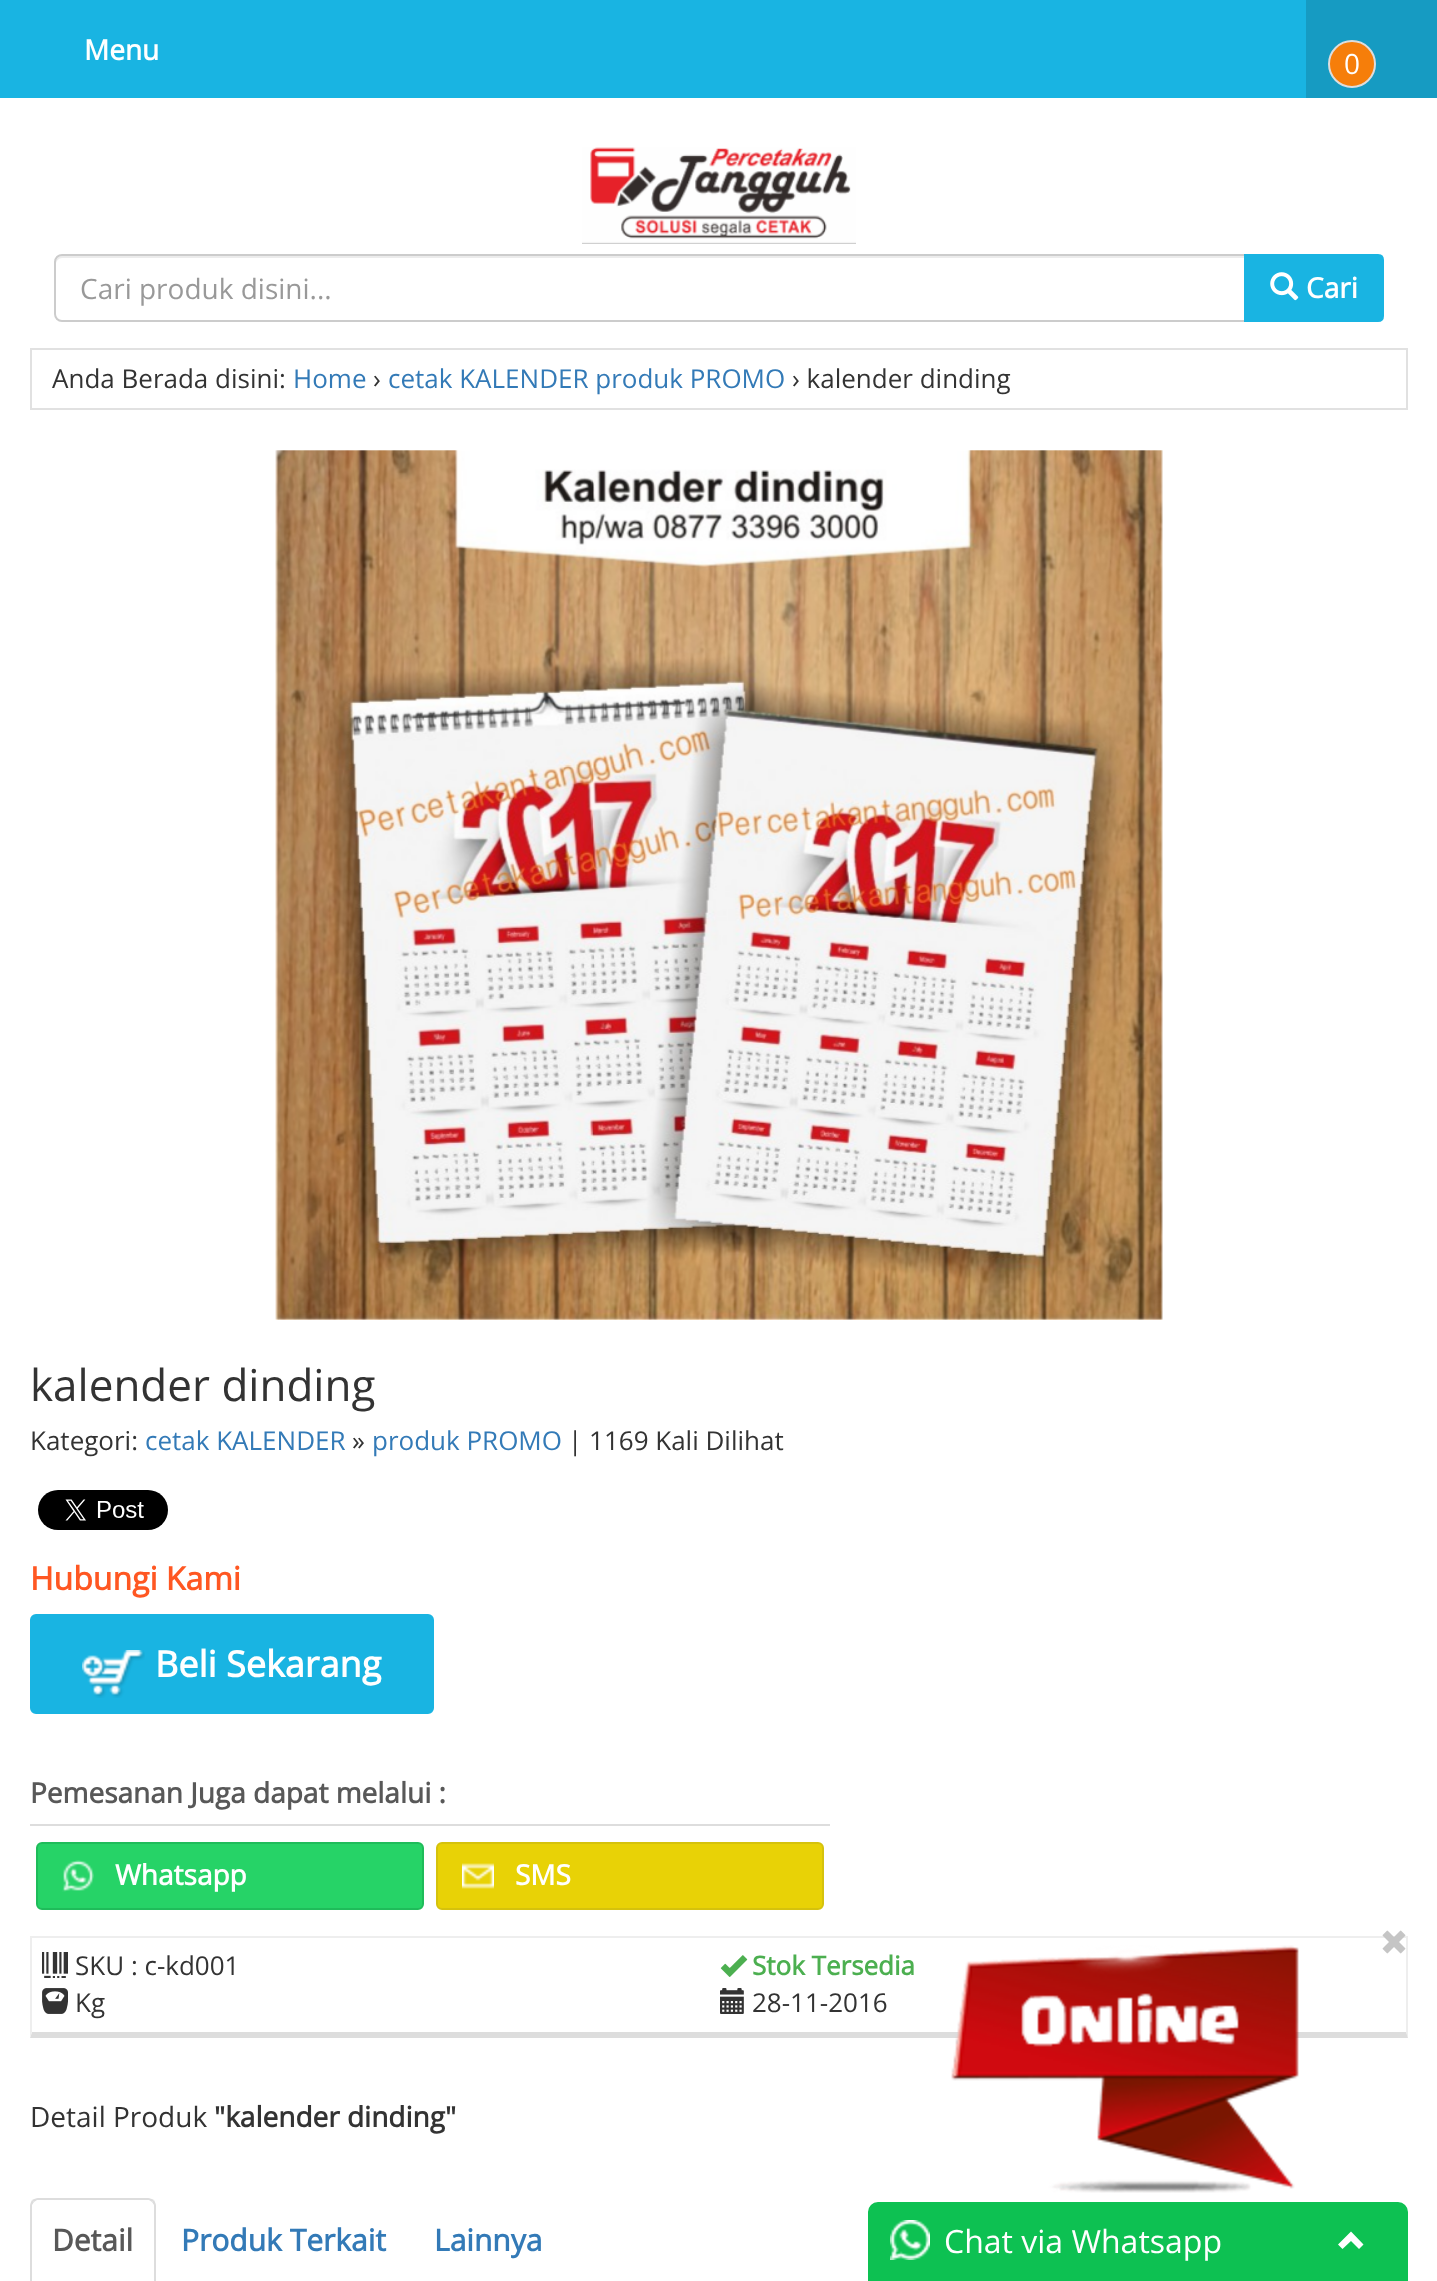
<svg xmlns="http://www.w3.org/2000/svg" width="1437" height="2281">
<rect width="100%" height="100%" fill="#fff"/>
<rect width="1306" height="98" fill="#19b4e2"/>
<text x="84" y="60" style="font-family:Open Sans;font-size:28px;font-weight:bold;fill:#fff">Menu</text>
<rect x="1306" width="131" height="98" fill="#169bc2"/>
<circle cx="1352" cy="64" r="23" fill="#f67e0a" stroke="#ddd" stroke-width="2"/>
<text x="1344" y="74" style="font-family:Open Sans;font-size:28px;fill:#fff">0</text>
<path d="M62 258h1182v-2h-1182c-3 0-6 3-6 6v2c0-3 3-6 6-6z" fill="#ececec"/>
<path d="M62 255h1183v66h-1183c-4 0-7-3-7-7v-52c0-4 3-7 7-7z" fill="none" stroke="#ccc" stroke-width="2"/>
<text x="80" y="299" style="font-family:Open Sans;font-size:28px;fill:#999">Cari produk disini...</text>
<path d="M1245 255h133c3 0 5 2 5 5v56c0 3-2 5-5 5h-133z" fill="#19b4e2" stroke="#19b4e2" stroke-width="2"/>
<image x="1270" y="272" width="29" height="29" href="media/1.png"/>
<text x="1306" y="298" style="font-family:Open Sans;font-size:28px;font-weight:bold;fill:#fff">Cari</text>
<image x="582" y="147" width="274" height="97" href="media/2.png"/>
<rect x="31" y="349" width="1376" height="60" fill="none" stroke="#e1e1e1" stroke-width="2"/>
<text x="52" y="388" style="font-family:Open Sans;font-size:26px;fill:#333">Anda Berada disini:</text>
<text x="293" y="388" style="font-family:Open Sans;font-size:26px;fill:#337ab7">Home</text>
<text x="373" y="388" style="font-family:Open Sans;font-size:26px;fill:#333">›</text>
<text x="388" y="388" style="font-family:Open Sans;font-size:26px;fill:#337ab7">cetak KALENDER produk PROMO</text>
<text x="792" y="388" style="font-family:Open Sans;font-size:26px;fill:#333">› kalender dinding</text>
<image x="275" y="450" width="888" height="870" href="media/3.png"/>
<text x="30" y="1401" style="font-family:Open Sans;font-size:44px;fill:#333">kalender dinding</text>
<text x="30" y="1450" style="font-family:Open Sans;font-size:26px;fill:#333">Kategori:</text>
<text x="145" y="1450" style="font-family:Open Sans;font-size:26px;fill:#337ab7">cetak KALENDER</text>
<text x="352" y="1450" style="font-family:Open Sans;font-size:26px;fill:#333">»</text>
<text x="372" y="1450" style="font-family:Open Sans;font-size:26px;fill:#337ab7">produk PROMO</text>
<text x="568" y="1450" style="font-family:Open Sans;font-size:26px;fill:#333">| 1169 Kali Dilihat</text>
<image x="38" y="1490" width="130" height="40" href="media/4.png"/>
<text x="30" y="1590" style="font-family:Open Sans;font-size:32px;font-weight:bold;fill:#ff5722">Hubungi Kami</text>
<rect x="31" y="1615" width="402" height="98" rx="5" fill="#19b4e2" stroke="#19b4e2" stroke-width="2"/>
<image x="82" y="1650" width="63" height="48" href="media/5.png"/>
<text x="155" y="1677" style="font-family:Open Sans;font-size:36px;font-weight:bold;fill:#fff">Beli Sekarang</text>
<rect x="30" y="1824" width="800" height="2" fill="#ddd"/>
<text x="30" y="1803" style="font-family:Open Sans;font-size:28px;font-weight:bold;fill:#585858">Pemesanan Juga dapat melalui :</text>
<rect x="37" y="1843" width="386" height="66" rx="5" fill="#26d367" stroke="#1fbc5a" stroke-width="2"/>
<image x="62" y="1860" width="32" height="32" href="media/6.png"/>
<text x="115" y="1885" style="font-family:Open Sans;font-size:28px;font-weight:bold;fill:#fff">Whatsapp</text>
<rect x="437" y="1843" width="386" height="66" rx="5" fill="#e8d206" stroke="#d5c20d" stroke-width="2"/>
<image x="462" y="1863" width="32" height="26" href="media/7.png"/>
<text x="515" y="1885" style="font-family:Open Sans;font-size:28px;font-weight:bold;fill:#fff">SMS</text>
<rect x="30" y="1936" width="1378" height="2" fill="#eee"/>
<path d="M1408 1936v102l-2-6v-94z" fill="#eee"/>
<path d="M1408 2038h-1378l2-6h1374z" fill="#ddd"/>
<path d="M30 2038v-102l2 2v94z" fill="#eee"/>
<image x="42" y="1952" width="26" height="26" href="media/8.png"/>
<text x="75" y="1975" style="font-family:Open Sans;font-size:26px;fill:#333">SKU : c-kd001</text>
<image x="720" y="1955" width="28" height="22" href="media/9.png"/>
<text x="752" y="1975" style="font-family:Open Sans;font-size:26px;font-weight:bold;fill:#4caf50">Stok Tersedia</text>
<image x="42" y="1988" width="26" height="26" href="media/10.png"/>
<text x="75" y="2012" style="font-family:Open Sans;font-size:26px;fill:#333">Kg</text>
<image x="720" y="1988" width="24" height="26" href="media/11.png"/>
<text x="752" y="2012" style="font-family:Open Sans;font-size:26px;fill:#333">28-11-2016</text>
<text x="30" y="2127" style="font-family:Open Sans;font-size:28px;fill:#333">Detail Produk</text>
<text x="214" y="2127" style="font-family:Open Sans;font-size:28px;font-weight:bold;fill:#333">"kalender dinding"</text>
<path d="M38 2198c-2 0-4 1-6 2l2 2l3-2h112l3 2l2-2c-2-1-4-2-6-2z" fill="#ddd"/>
<path d="M156 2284v-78c0-2-1-4-2-6l-2 2l2 3v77z" fill="#ddd"/>
<path d="M30 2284l2-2v-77l2-3l-2-2c-1 2-2 4-2 6z" fill="#ddd"/>
<text x="52" y="2251" style="font-family:Open Sans;font-size:30px;font-weight:bold;fill:#585858">Detail</text>
<text x="181" y="2251" style="font-family:Open Sans;font-size:30px;font-weight:bold;fill:#337ab7">Produk Terkait</text>
<text x="434" y="2251" style="font-family:Open Sans;font-size:30px;font-weight:bold;fill:#337ab7">Lainnya</text>
<image x="1382" y="1930" width="24" height="24" href="media/12.png"/>
<image x="951" y="1945" width="348" height="248" href="media/13.png"/>
<path d="M878 2203h520c5 0 9 4 9 9v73h-538v-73c0-5 4-9 9-9z" fill="none" stroke="#0dc152" stroke-width="2"/>
<path d="M876 2204h524c3.5 0 6 2.5 6 6v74h-536v-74c0-3.5 2.5-6 6-6z" fill="#0dc152"/>
<image x="890" y="2220" width="40" height="40" href="media/14.png"/>
<text x="944" y="2253" style="font-family:Open Sans;font-size:32px;fill:#fff">Chat via Whatsapp</text>
<path d="M1363.5 2244.5l-4.5 4.5l-8-8l-8.5 8l-4.5-4.5l13-13z" fill="#fff"/>
</svg>
